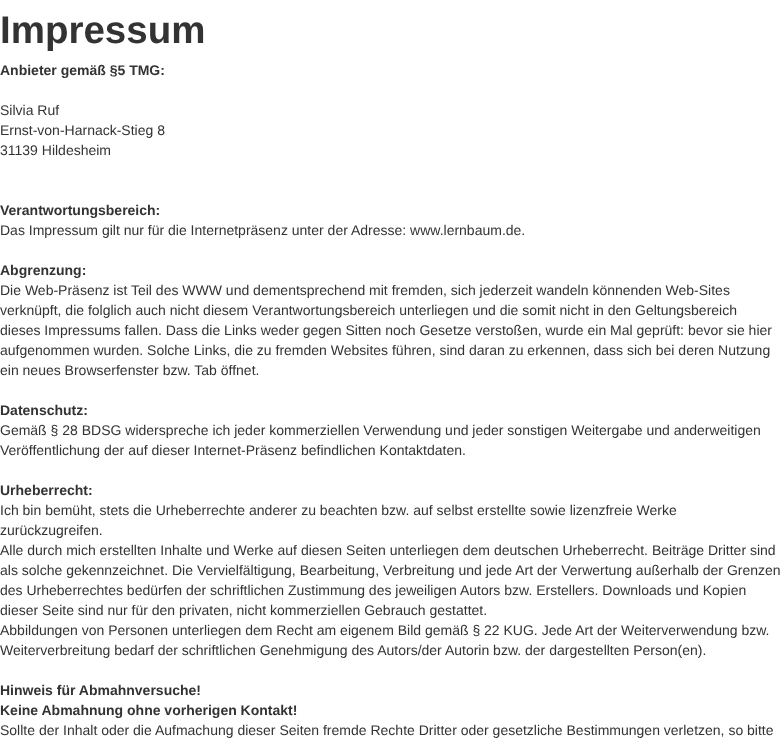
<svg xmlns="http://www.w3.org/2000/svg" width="781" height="752">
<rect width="100%" height="100%" fill="#fff"/>
<text x="0" y="43" style="font-family:Liberation Sans;font-size:38.5px;font-weight:bold;fill:#333">Impressum</text>
<text x="0" y="75" style="font-family:Liberation Sans;font-size:14px;font-weight:bold;fill:#333">Anbieter gemäß §5 TMG:</text>
<text x="0" y="115" style="font-family:Liberation Sans;font-size:14px;fill:#333">Silvia Ruf</text>
<text x="0" y="135" style="font-family:Liberation Sans;font-size:14px;fill:#333">Ernst-von-Harnack-Stieg 8</text>
<text x="0" y="155" style="font-family:Liberation Sans;font-size:14px;fill:#333">31139 Hildesheim</text>
<text x="0" y="215" style="font-family:Liberation Sans;font-size:14px;font-weight:bold;fill:#333">Verantwortungsbereich:</text>
<text x="0" y="235" style="font-family:Liberation Sans;font-size:14px;fill:#333">Das Impressum gilt nur für die Internetpräsenz unter der Adresse: www.lernbaum.de.</text>
<text x="0" y="275" style="font-family:Liberation Sans;font-size:14px;font-weight:bold;fill:#333">Abgrenzung:</text>
<text x="0" y="295" style="font-family:Liberation Sans;font-size:14px;fill:#333">Die Web-Präsenz ist Teil des WWW und dementsprechend mit fremden, sich jederzeit wandeln könnenden Web-Sites</text>
<text x="0" y="315" style="font-family:Liberation Sans;font-size:14px;fill:#333">verknüpft, die folglich auch nicht diesem Verantwortungsbereich unterliegen und die somit nicht in den Geltungsbereich</text>
<text x="0" y="335" style="font-family:Liberation Sans;font-size:14px;fill:#333">dieses Impressums fallen. Dass die Links weder gegen Sitten noch Gesetze verstoßen, wurde ein Mal geprüft: bevor sie hier</text>
<text x="0" y="355" style="font-family:Liberation Sans;font-size:14px;fill:#333">aufgenommen wurden. Solche Links, die zu fremden Websites führen, sind daran zu erkennen, dass sich bei deren Nutzung</text>
<text x="0" y="375" style="font-family:Liberation Sans;font-size:14px;fill:#333">ein neues Browserfenster bzw. Tab öffnet.</text>
<text x="0" y="415" style="font-family:Liberation Sans;font-size:14px;font-weight:bold;fill:#333">Datenschutz:</text>
<text x="0" y="435" style="font-family:Liberation Sans;font-size:14px;fill:#333">Gemäß § 28 BDSG widerspreche ich jeder kommerziellen Verwendung und jeder sonstigen Weitergabe und anderweitigen</text>
<text x="0" y="455" style="font-family:Liberation Sans;font-size:14px;fill:#333">Veröffentlichung der auf dieser Internet-Präsenz befindlichen Kontaktdaten.</text>
<text x="0" y="495" style="font-family:Liberation Sans;font-size:14px;font-weight:bold;fill:#333">Urheberrecht:</text>
<text x="0" y="515" style="font-family:Liberation Sans;font-size:14px;fill:#333">Ich bin bemüht, stets die Urheberrechte anderer zu beachten bzw. auf selbst erstellte sowie lizenzfreie Werke</text>
<text x="0" y="535" style="font-family:Liberation Sans;font-size:14px;fill:#333">zurückzugreifen.</text>
<text x="0" y="555" style="font-family:Liberation Sans;font-size:14px;fill:#333">Alle durch mich erstellten Inhalte und Werke auf diesen Seiten unterliegen dem deutschen Urheberrecht. Beiträge Dritter sind</text>
<text x="0" y="575" style="font-family:Liberation Sans;font-size:14px;fill:#333">als solche gekennzeichnet. Die Vervielfältigung, Bearbeitung, Verbreitung und jede Art der Verwertung außerhalb der Grenzen</text>
<text x="0" y="595" style="font-family:Liberation Sans;font-size:14px;fill:#333">des Urheberrechtes bedürfen der schriftlichen Zustimmung des jeweiligen Autors bzw. Erstellers. Downloads und Kopien</text>
<text x="0" y="615" style="font-family:Liberation Sans;font-size:14px;fill:#333">dieser Seite sind nur für den privaten, nicht kommerziellen Gebrauch gestattet.</text>
<text x="0" y="635" style="font-family:Liberation Sans;font-size:14px;fill:#333">Abbildungen von Personen unterliegen dem Recht am eigenem Bild gemäß § 22 KUG. Jede Art der Weiterverwendung bzw.</text>
<text x="0" y="655" style="font-family:Liberation Sans;font-size:14px;fill:#333">Weiterverbreitung bedarf der schriftlichen Genehmigung des Autors/der Autorin bzw. der dargestellten Person(en).</text>
<text x="0" y="695" style="font-family:Liberation Sans;font-size:14px;font-weight:bold;fill:#333">Hinweis für Abmahnversuche!</text>
<text x="0" y="715" style="font-family:Liberation Sans;font-size:14px;font-weight:bold;fill:#333">Keine Abmahnung ohne vorherigen Kontakt!</text>
<text x="0" y="735" style="font-family:Liberation Sans;font-size:14px;fill:#333">Sollte der Inhalt oder die Aufmachung dieser Seiten fremde Rechte Dritter oder gesetzliche Bestimmungen verletzen, so bitte</text>
</svg>
